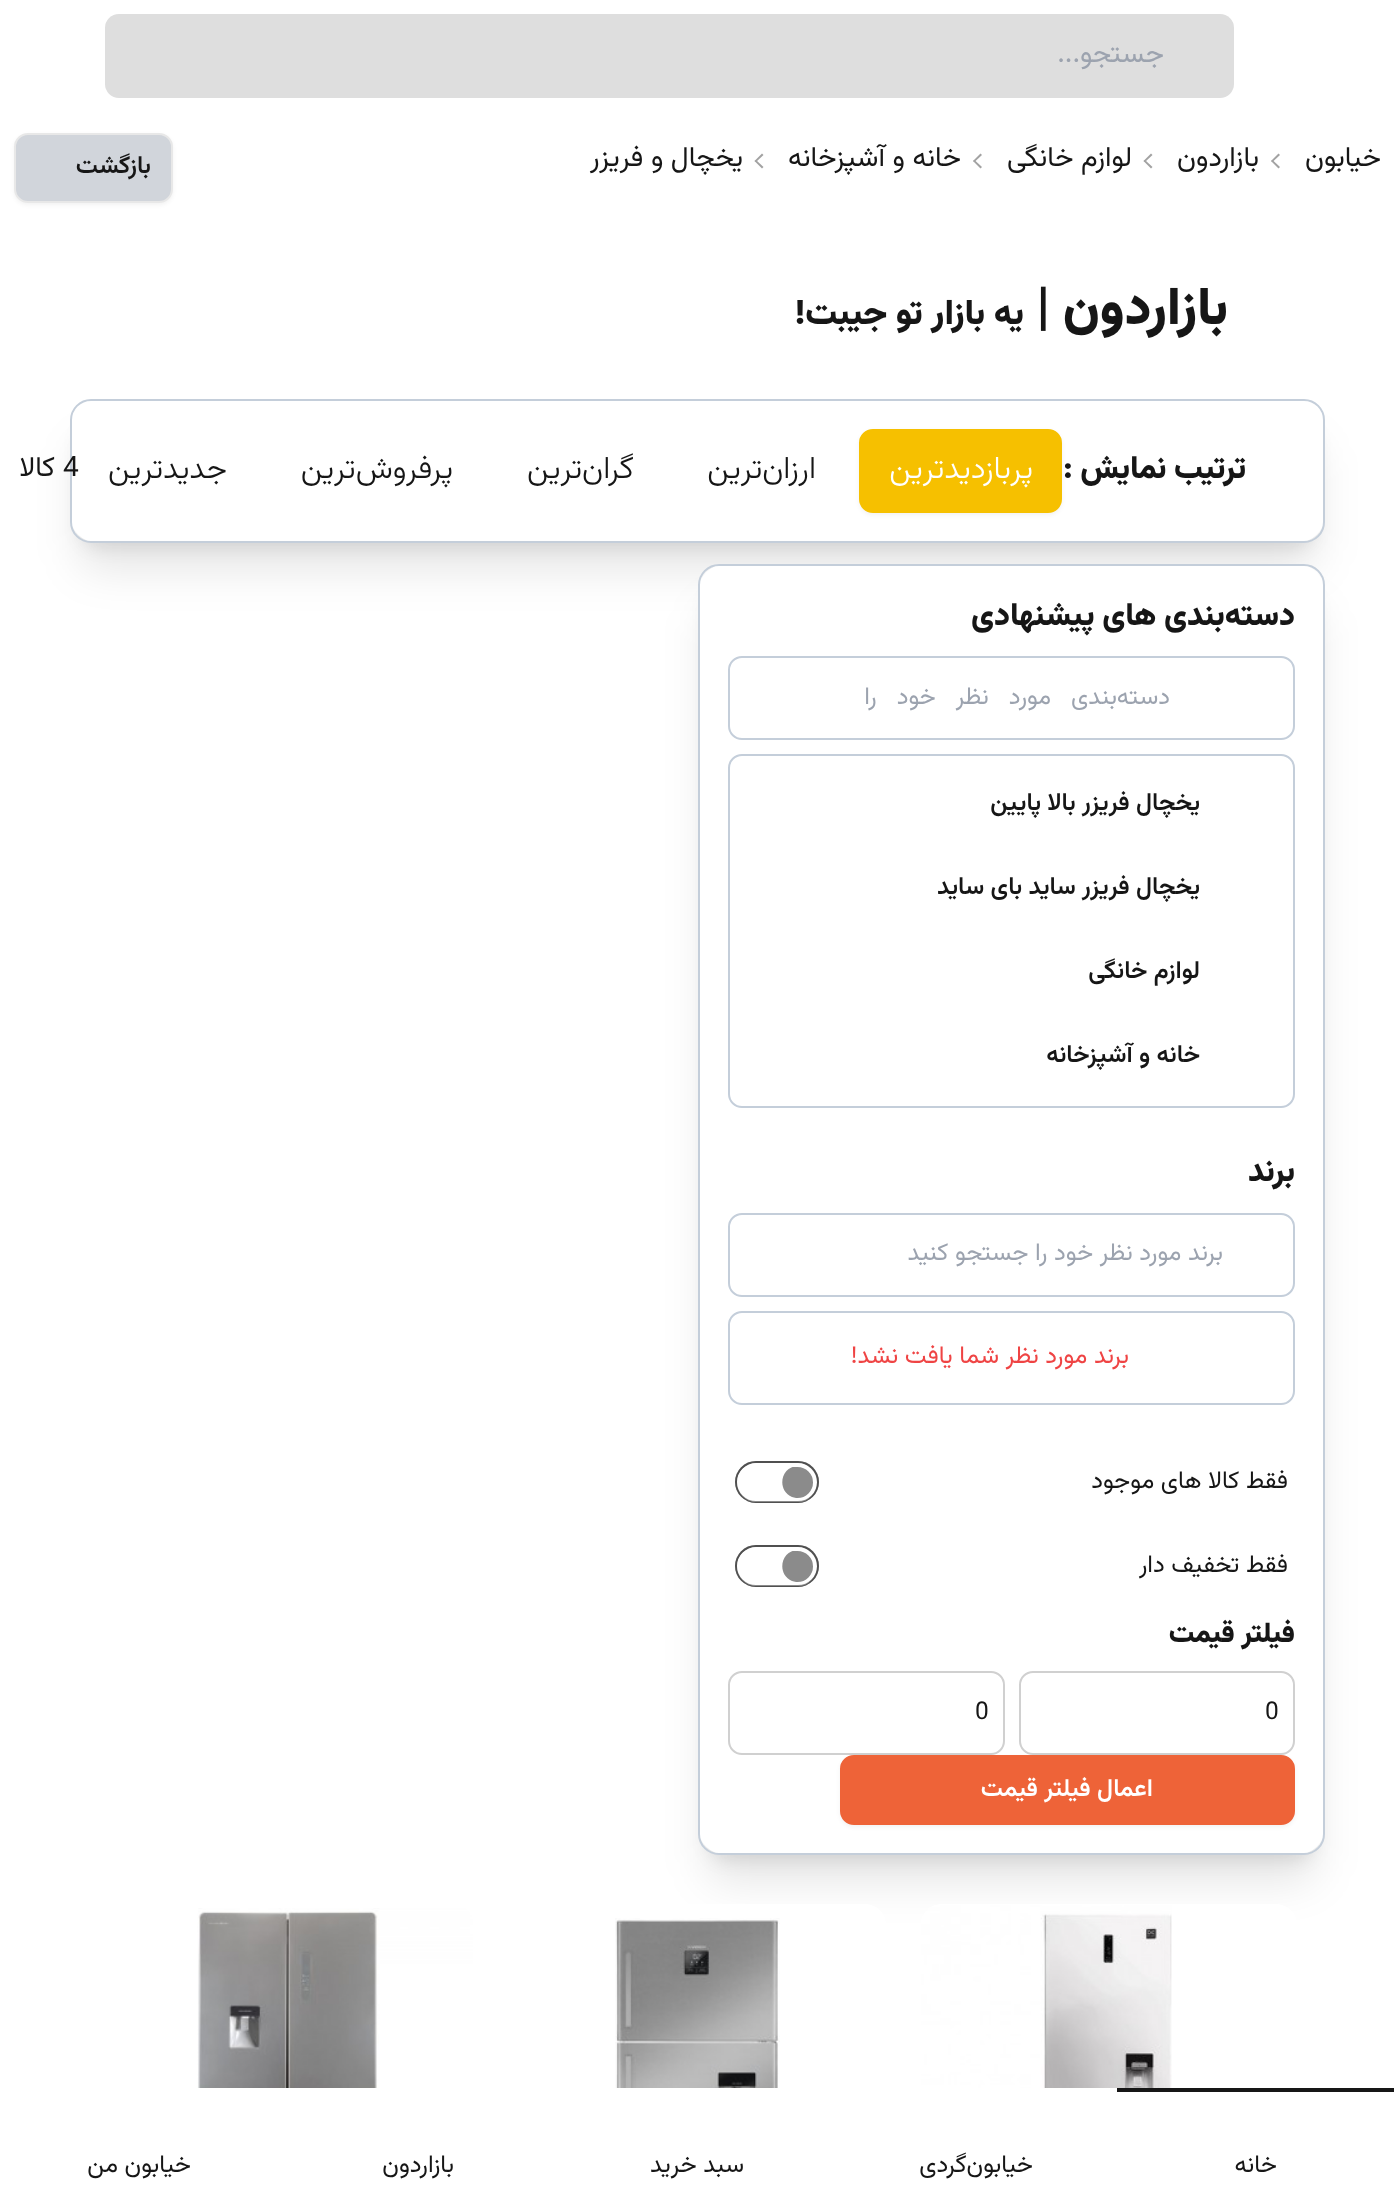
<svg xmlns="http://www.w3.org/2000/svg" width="1394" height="2199">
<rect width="100%" height="100%" fill="#fff"/>
<rect x="105" y="14" width="1129" height="84" rx="14" fill="#dedede"/>
<text x="1164" y="62" style="font-family:Vazirmatn;font-size:28px;direction:rtl;fill:#9ca3af">جستجو...</text>
<text x="1381" y="166" style="font-family:Vazirmatn;font-size:28px;direction:rtl;fill:#161616">خیابون</text>
<path d="M1278.5 168.5l-7.5-7.5l1.5-1l7.5 7z" fill="#a2a2a2"/>
<path d="M1272.5 162l-1.5-1l7.5-7.5l1.5 1.5z" fill="#a2a2a2"/>
<text x="1259" y="166" style="font-family:Vazirmatn;font-size:28px;direction:rtl;fill:#161616">بازاردون</text>
<path d="M1151 168.5l-7.5-7.5l1.5-1l7.5 7z" fill="#a2a2a2"/>
<path d="M1145 162l-1.5-1l7.5-7.5l1.5 1.5z" fill="#a2a2a2"/>
<text x="1132" y="166" style="font-family:Vazirmatn;font-size:28px;direction:rtl;fill:#161616">لوازم خانگی</text>
<path d="M980.5 168.5l-7.5-7.5l1.5-1l7.5 7z" fill="#a2a2a2"/>
<path d="M974.5 162l-1.5-1l7.5-7.5l1.5 1.5z" fill="#a2a2a2"/>
<text x="961" y="166" style="font-family:Vazirmatn;font-size:28px;direction:rtl;fill:#161616">خانه و آشپزخانه</text>
<path d="M762 168.5l-7.5-7.5l1.5-1l7.5 7z" fill="#a2a2a2"/>
<path d="M756 162l-1.5-1l7.5-7.5l1.5 1.5z" fill="#a2a2a2"/>
<text x="743" y="166" style="font-family:Vazirmatn;font-size:28px;direction:rtl;fill:#161616">یخچال و فریزر</text>
<rect x="14" y="135" width="159" height="70" rx="14" fill="#0000000d" filter="blur(2px)"/>
<rect x="15" y="134" width="157" height="68" rx="13" fill="#d1d5db" stroke="#e8e8e8" stroke-width="2"/>
<text x="151" y="173" style="font-family:Vazirmatn;font-size:24.5px;font-weight:600;direction:rtl;fill:#161616">بازگشت</text>
<text x="1228" y="324" style="font-family:Vazirmatn;font-size:52.5px;font-weight:900;direction:rtl;fill:#161616">بازاردون |</text>
<text x="1024" y="324" style="font-family:Vazirmatn;font-size:35px;font-weight:900;direction:rtl;fill:#161616">یه بازار تو جیبت!</text>
<rect x="81" y="424" width="1233" height="122" rx="18" fill="#0000001a" filter="blur(9px)"/>
<rect x="79" y="443" width="1237" height="126" rx="19" fill="#0000001a" filter="blur(22px)"/>
<rect x="70" y="399" width="1255" height="144" rx="28" fill="#fff"/>
<rect x="71" y="400" width="1253" height="142" rx="20" fill="none" stroke="#c4ceda" stroke-width="2"/>
<text x="1246" y="478" style="font-family:Vazirmatn;font-size:31.5px;font-weight:900;direction:rtl;fill:#161616">ترتیب نمایش :</text>
<rect x="859" y="431" width="203" height="84" rx="14" fill="#0000000d" filter="blur(2px)"/>
<rect x="860" y="430" width="201" height="82" rx="13" fill="#f6c000" stroke="#f6c000" stroke-width="2"/>
<text x="1033" y="478" style="font-family:Vazirmatn;font-size:31.5px;font-weight:300;direction:rtl;fill:#fff">پربازدید‌ترین</text>
<text x="816" y="478" style="font-family:Vazirmatn;font-size:31.5px;font-weight:300;direction:rtl;fill:#161616">ارزان‌ترین</text>
<text x="634" y="478" style="font-family:Vazirmatn;font-size:31.5px;font-weight:300;direction:rtl;fill:#161616">گران‌ترین</text>
<text x="453" y="478" style="font-family:Vazirmatn;font-size:31.5px;font-weight:300;direction:rtl;fill:#161616">پرفروش‌ترین</text>
<text x="227" y="478" style="font-family:Vazirmatn;font-size:31.5px;font-weight:300;direction:rtl;fill:#161616">جدیدترین</text>
<text x="63" y="476" style="font-family:Vazirmatn;font-size:28px;fill:#161616">4</text>
<text x="55" y="476" style="font-family:Vazirmatn;font-size:28px;direction:rtl;fill:#161616">کالا</text>
<rect x="709" y="588" width="605" height="1271" rx="18" fill="#0000001a" filter="blur(9px)"/>
<rect x="707" y="607" width="609" height="1274" rx="19" fill="#0000001a" filter="blur(22px)"/>
<rect x="698" y="564" width="627" height="1291" rx="28" fill="#fff"/>
<rect x="699" y="565" width="625" height="1289" rx="20" fill="none" stroke="#c4ceda" stroke-width="2"/>
<text x="1295" y="625" style="font-family:Vazirmatn;font-size:31.5px;font-weight:900;direction:rtl;fill:#161616">دسته‌بندی‌ های پیشنهادی</text>
<rect x="729" y="657" width="565" height="82" rx="13" fill="none" stroke="#c4ceda" stroke-width="2"/>
<text x="1170" y="704" word-spacing="13.5" style="font-family:Vazirmatn;font-size:24.5px;direction:rtl;fill:#9ca3af">دسته‌بندی مورد نظر خود را</text>
<rect x="729" y="755" width="565" height="352" rx="13" fill="none" stroke="#c4ceda" stroke-width="2"/>
<text x="1200" y="810" style="font-family:Vazirmatn;font-size:24.5px;font-weight:600;direction:rtl;fill:#161616">یخچال فریزر بالا پایین</text>
<text x="1200" y="894" style="font-family:Vazirmatn;font-size:24.5px;font-weight:600;direction:rtl;fill:#161616">یخچال فریزر ساید بای ساید</text>
<text x="1200" y="978" style="font-family:Vazirmatn;font-size:24.5px;font-weight:600;direction:rtl;fill:#161616">لوازم خانگی</text>
<text x="1200" y="1062" style="font-family:Vazirmatn;font-size:24.5px;font-weight:600;direction:rtl;fill:#161616">خانه و آشپزخانه</text>
<text x="1295" y="1181" style="font-family:Vazirmatn;font-size:31.5px;font-weight:900;direction:rtl;fill:#161616">برند</text>
<rect x="729" y="1214" width="565" height="82" rx="13" fill="none" stroke="#c4ceda" stroke-width="2"/>
<text x="1223" y="1260" style="font-family:Vazirmatn;font-size:24.5px;direction:rtl;fill:#9ca3af">برند مورد نظر خود را جستجو کنید</text>
<rect x="729" y="1312" width="565" height="92" rx="13" fill="none" stroke="#c4ceda" stroke-width="2"/>
<text x="1129" y="1363" style="font-family:Vazirmatn;font-size:24.5px;direction:rtl;fill:#ef4444">برند مورد نظر شما یافت نشد!</text>
<text x="1288" y="1488" style="font-family:Vazirmatn;font-size:24.5px;direction:rtl;fill:#161616">فقط کالا های موجود</text>
<rect x="735" y="1461" width="84" height="42" rx="21" fill="#8b8b8b"/>
<rect x="739" y="1465" width="76" height="35" rx="17.5" fill="none" stroke="#fff" stroke-width="4"/>
<path d="M798 1466h10c-3-2-7-3-10-3h-42c-10 0-19 9-19 19c0 11 9 20 19 20h42c4 0 8-1 11-4c-5 0-12 1-17-1c-16-7-11-31 6-31z" fill="#fff"/>
<rect x="736" y="1462" width="82" height="40" rx="20" fill="none" stroke="#16161680" stroke-width="2"/>
<text x="1288" y="1572" style="font-family:Vazirmatn;font-size:24.5px;direction:rtl;fill:#161616">فقط تخفیف دار</text>
<rect x="735" y="1545" width="84" height="42" rx="21" fill="#8b8b8b"/>
<rect x="739" y="1549" width="76" height="35" rx="17.5" fill="none" stroke="#fff" stroke-width="4"/>
<path d="M798 1550h10c-3-2-7-3-10-3h-42c-10 0-19 9-19 19c0 11 9 20 19 20h42c4 0 8-1 11-4c-5 0-12 1-17-1c-16-7-11-31 6-31z" fill="#fff"/>
<rect x="736" y="1546" width="82" height="40" rx="20" fill="none" stroke="#16161680" stroke-width="2"/>
<text x="1295" y="1642" style="font-family:Vazirmatn;font-size:28px;font-weight:900;direction:rtl;fill:#161616">فیلتر قیمت</text>
<rect x="1020" y="1672" width="274" height="82" rx="13" fill="none" stroke="#d0d0d0" stroke-width="2"/>
<text x="1265" y="1719" style="font-family:Vazirmatn;font-size:24.5px;fill:#161616">0</text>
<rect x="729" y="1672" width="275" height="82" rx="13" fill="none" stroke="#d0d0d0" stroke-width="2"/>
<text x="975" y="1719" style="font-family:Vazirmatn;font-size:24.5px;fill:#161616">0</text>
<rect x="840" y="1757" width="455" height="70" rx="14" fill="#0000000d" filter="blur(2px)"/>
<rect x="841" y="1756" width="453" height="68" rx="13" fill="#ee6338" stroke="#ee6338" stroke-width="2"/>
<text x="1153" y="1796" style="font-family:Vazirmatn;font-size:24.5px;font-weight:600;direction:rtl;fill:#fff">اعمال فیلتر قیمت</text>
<path d="M942 1904h334c11.5 0 21 9.5 21 21v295h-376v-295c0-11.5 9.5-21 21-21z" fill="#fff"/>
<image x="921" y="1905" width="251" height="183" href="media/1.png"/>
<path d="M530 1904h335c11.5 0 21 9.5 21 21v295h-377v-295c0-11.5 9.5-21 21-21z" fill="#fff"/>
<image x="615" y="1918" width="165" height="170" href="media/2.png"/>
<image x="197" y="1908" width="276" height="180" href="media/3.png"/>
<rect x="1117" y="2088" width="277" height="4" fill="#161616"/>
<text x="1277" y="2172" style="font-family:Vazirmatn;font-size:24.5px;direction:rtl;fill:#161616">خانه</text>
<text x="1033" y="2172" style="font-family:Vazirmatn;font-size:24.5px;direction:rtl;fill:#161616">خیابون‌گردی</text>
<text x="744" y="2172" style="font-family:Vazirmatn;font-size:24.5px;direction:rtl;fill:#161616">سبد خرید</text>
<text x="454" y="2172" style="font-family:Vazirmatn;font-size:24.5px;direction:rtl;fill:#161616">بازاردون</text>
<text x="191" y="2172" style="font-family:Vazirmatn;font-size:24.5px;direction:rtl;fill:#161616">خیابون من</text>
</svg>
